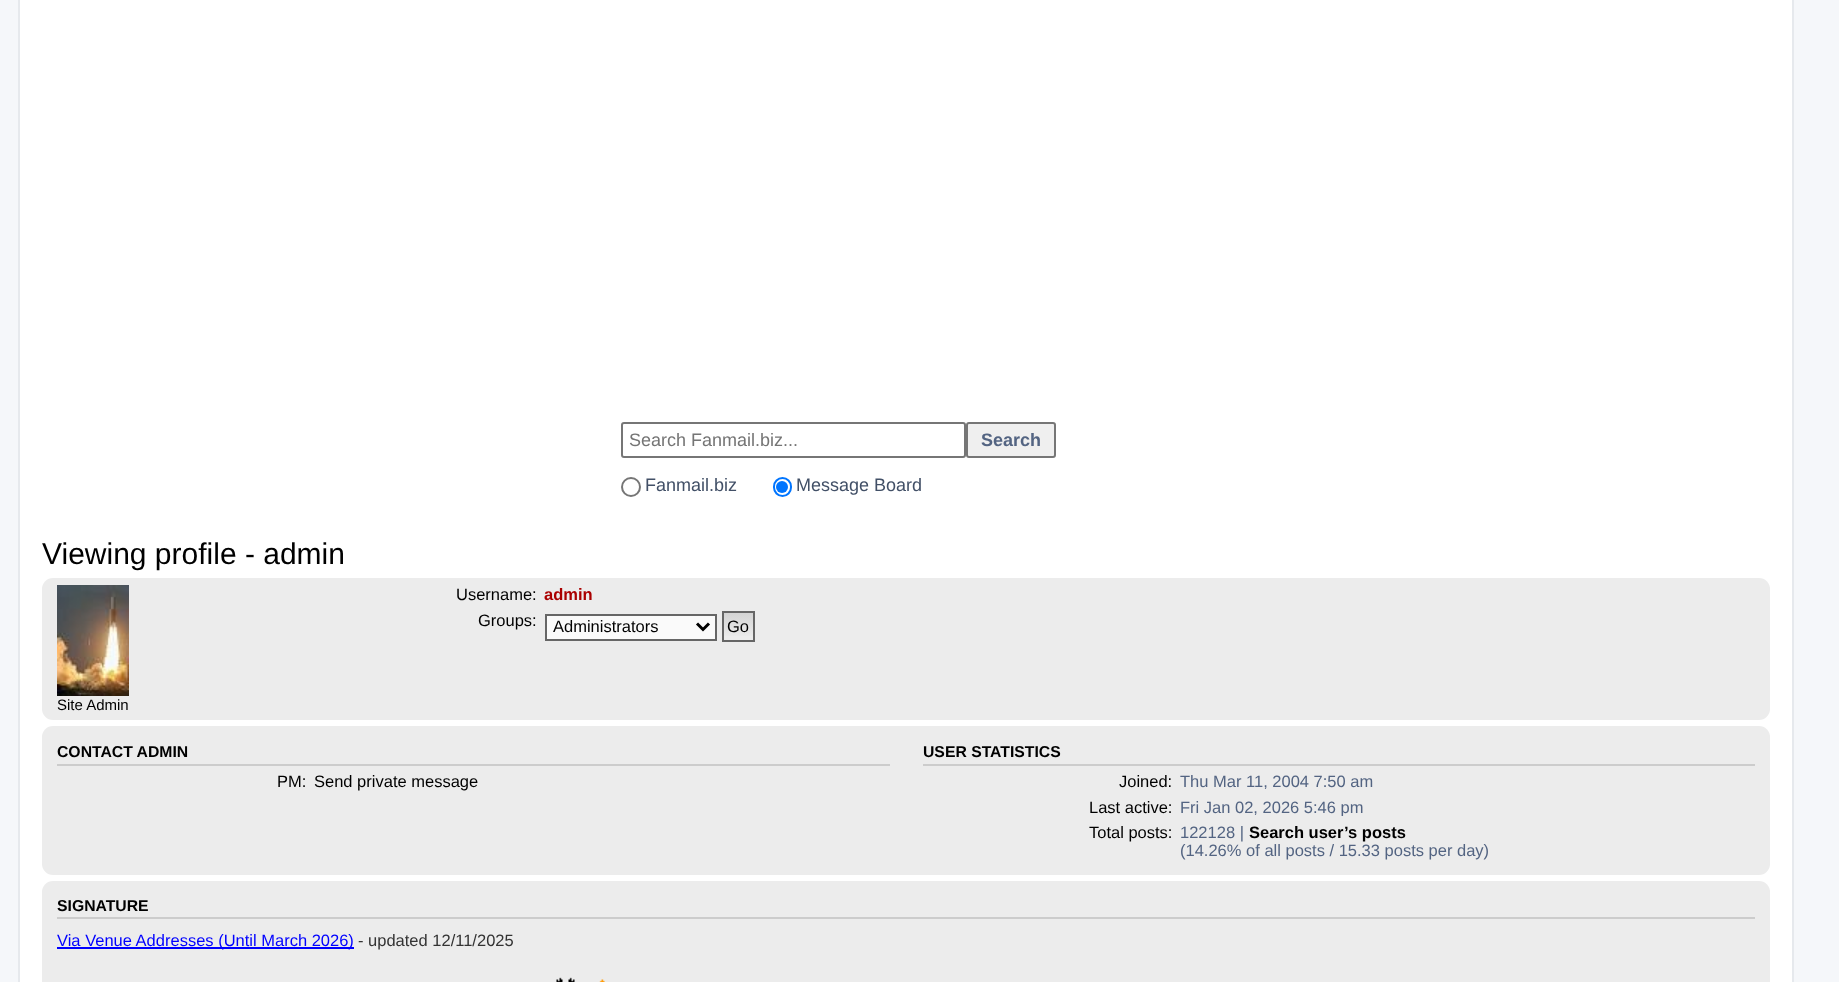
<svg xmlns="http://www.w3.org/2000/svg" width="1839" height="982">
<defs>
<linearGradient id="g1" gradientUnits="userSpaceOnUse" x1="738" y1="612" x2="738" y2="641"><stop offset="0" stop-color="#d2d2d2"/><stop offset="1" stop-color="#efefef"/></linearGradient>
<clipPath id="clip1"><rect x="1173" y="798" width="548" height="18"/></clipPath>
</defs>
<rect width="100%" height="100%" fill="#f5f7fa"/>
<rect x="19" y="-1" width="1774" height="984" fill="#fff" stroke="#e6e9ed" stroke-width="2"/>
<rect x="622" y="423" width="343" height="34" rx="2" fill="none" stroke="#767676" stroke-width="2"/>
<text x="629" y="446" style="font-family:Liberation Sans;font-size:18px;fill:#757575">Search Fanmail.biz...</text>
<rect x="967" y="423" width="88" height="34" rx="2" fill="#efefef" stroke="#767676" stroke-width="2"/>
<text x="981" y="446" style="font-family:Liberation Sans;font-size:18px;font-weight:bold;fill:#536482">Search</text>
<circle cx="631" cy="487" r="9" fill="none" stroke="#767676" stroke-width="2"/>
<text x="645" y="491" style="font-family:Liberation Sans;font-size:18px;fill:#425067">Fanmail.biz</text>
<rect x="774" y="478" width="17" height="18" rx="8.5" fill="none" stroke="#0075ff" stroke-width="2"/>
<circle cx="782" cy="487" r="6" fill="#0075ff"/>
<text x="796" y="491" style="font-family:Liberation Sans;font-size:18px;fill:#425067">Message Board</text>
<text x="42" y="564" style="font-family:Liberation Sans;font-size:30px;fill:#000">Viewing profile - admin</text>
<rect x="42" y="578" width="1728" height="142" rx="11" fill="#ececec"/>
<text x="456" y="600" style="font-family:Liberation Sans;font-size:16.5px;fill:#000">Username:</text>
<text x="544" y="600" style="font-family:Liberation Sans;font-size:16.5px;font-weight:bold;fill:#a00">admin</text>
<text x="478" y="626" style="font-family:Liberation Sans;font-size:16.5px;fill:#000">Groups:</text>
<rect x="546" y="615" width="170" height="25" fill="#fafafa" stroke="#666" stroke-width="2"/>
<path d="M697 623.5l6 6l6-6" fill="none" stroke="#000" stroke-width="3"/>
<text x="553" y="632" style="font-family:Liberation Sans;font-size:16.5px;fill:#000">Administrators</text>
<rect x="724" y="613" width="29" height="23" fill="url(#g1)"/>
<rect x="723" y="612" width="31" height="29" fill="none" stroke="#666" stroke-width="2"/>
<text x="727" y="632" style="font-family:Liberation Sans;font-size:16.5px;fill:#000">Go</text>
<image x="57" y="585" width="72" height="111" href="media/1.png"/>
<text x="57" y="710" style="font-family:Liberation Sans;font-size:15px;fill:#000">Site Admin</text>
<rect x="42" y="726" width="1728" height="149" rx="11" fill="#ececec"/>
<rect x="57" y="764" width="833" height="2" fill="#ccc"/>
<text x="57" y="757" style="font-family:Liberation Sans;font-size:15.75px;font-weight:bold;fill:#000">CONTACT ADMIN</text>
<text x="277" y="787" style="font-family:Liberation Sans;font-size:16.5px;fill:#000">PM:</text>
<text x="314" y="787" style="font-family:Liberation Sans;font-size:16.5px;fill:#000">Send private message</text>
<rect x="923" y="764" width="832" height="2" fill="#ccc"/>
<text x="923" y="757" style="font-family:Liberation Sans;font-size:15.75px;font-weight:bold;fill:#000">USER STATISTICS</text>
<text x="1119" y="787" style="font-family:Liberation Sans;font-size:16.5px;fill:#000">Joined:</text>
<text x="1180" y="787" style="font-family:Liberation Sans;font-size:16.5px;fill:#536482">Thu Mar 11, 2004 7:50 am</text>
<text x="1089" y="813" style="font-family:Liberation Sans;font-size:16.5px;fill:#000">Last active:</text>
<g clip-path="url(#clip1)">
<text x="1180" y="813" style="font-family:Liberation Sans;font-size:16.5px;fill:#536482">Fri Jan 02, 2026 5:46 pm</text>
</g>
<text x="1089" y="838" style="font-family:Liberation Sans;font-size:16.5px;fill:#000">Total posts:</text>
<text x="1180" y="838" style="font-family:Liberation Sans;font-size:16.5px;fill:#536482">122128 |</text>
<text x="1249" y="838" style="font-family:Liberation Sans;font-size:16.5px;font-weight:bold;fill:#000">Search user’s posts</text>
<text x="1180" y="856" style="font-family:Liberation Sans;font-size:16.5px;fill:#536482">(14.26% of all posts / 15.33 posts per day)</text>
<rect x="42" y="881" width="1728" height="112" rx="11" fill="#ececec"/>
<rect x="57" y="917" width="1698" height="2" fill="#ccc"/>
<text x="57" y="911" style="font-family:Liberation Sans;font-size:15.75px;font-weight:bold;fill:#000">SIGNATURE</text>
<rect x="57" y="947" width="297" height="2" fill="#00f"/>
<text x="57" y="946" style="font-family:Liberation Sans;font-size:16.5px;fill:#00f">Via Venue Addresses (Until March 2026)</text>
<text x="358" y="946" style="font-family:Liberation Sans;font-size:16.5px;fill:#333">- updated 12/11/2025</text>
<image x="556" y="977" width="19" height="5" href="media/2.png"/>
<image x="599" y="979" width="6" height="3" href="media/3.png"/>
</svg>
